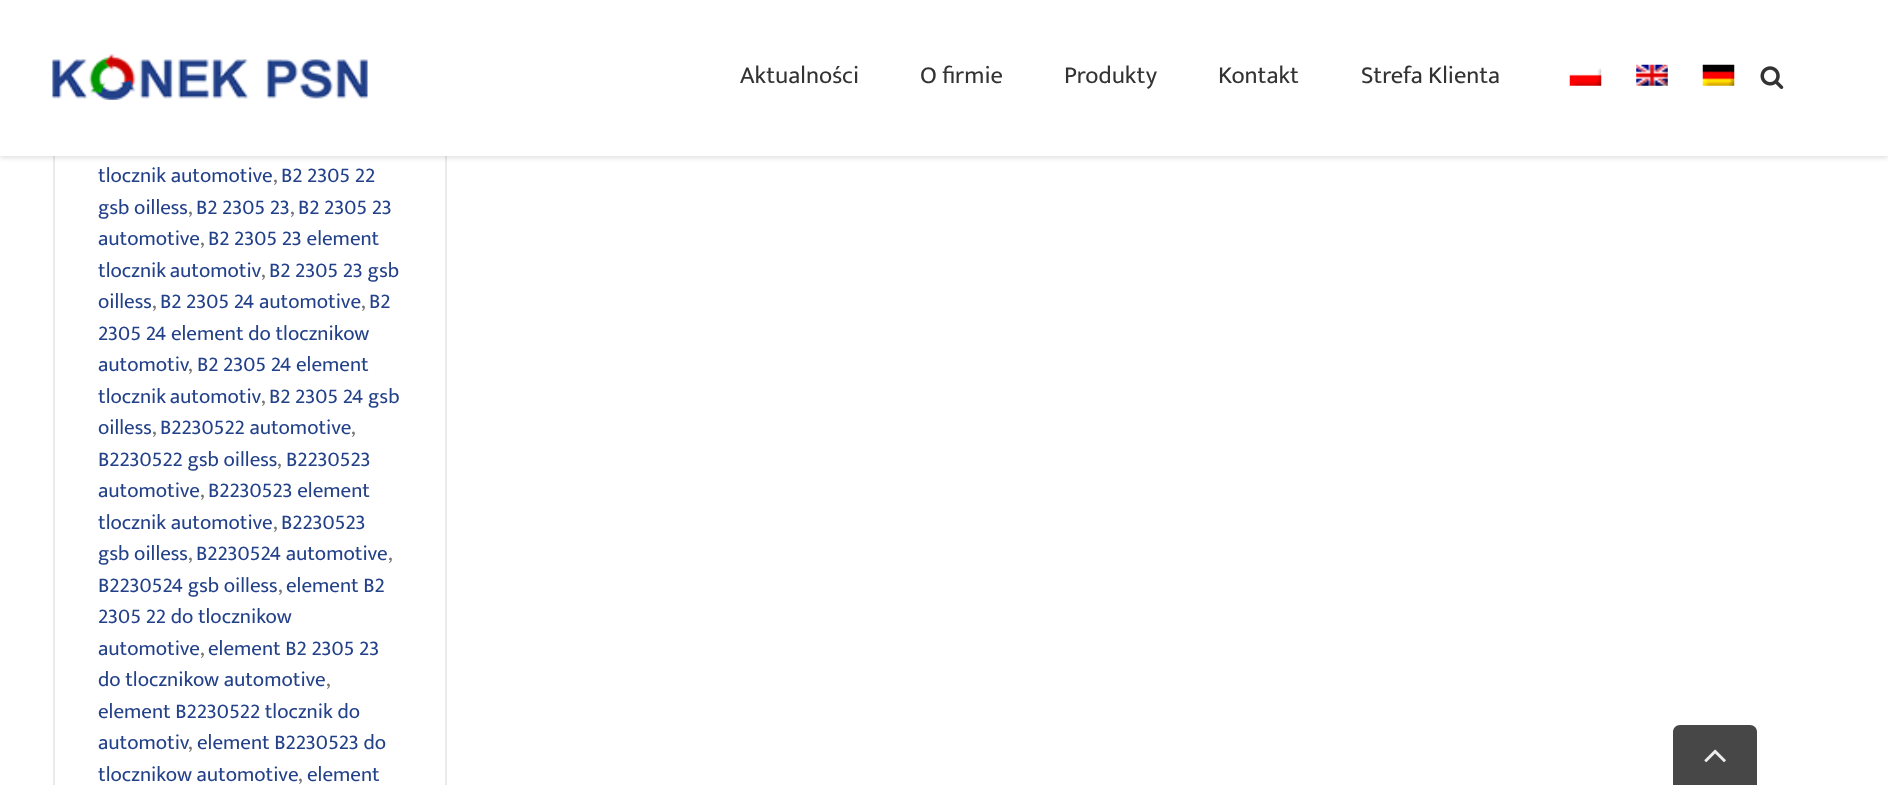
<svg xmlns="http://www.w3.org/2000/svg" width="1888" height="785">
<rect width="100%" height="100%" fill="#fff"/>
<rect x="445" y="156" width="2" height="629" fill="#ebeaea"/>
<rect x="53" y="156" width="2" height="629" fill="#ebeaea"/>
<rect y="2" width="1888" height="156" fill="#0000001f" filter="blur(2.5px)"/>
<rect width="1888" height="156" fill="#fff"/>
<image x="52" y="54" width="316" height="46" href="media/1.png"/>
<text x="740" y="83" style="font-family:Mukta;font-size:24.5px;fill:#333">Aktualności</text>
<text x="920" y="83" style="font-family:Mukta;font-size:24.5px;fill:#333">O firmie</text>
<text x="1064" y="83" style="font-family:Mukta;font-size:24.5px;fill:#333">Produkty</text>
<text x="1218" y="83" style="font-family:Mukta;font-size:24.5px;fill:#333">Kontakt</text>
<text x="1361" y="83" style="font-family:Mukta;font-size:24.5px;fill:#333">Strefa Klienta</text>
<image x="1569" y="68" width="33" height="18" href="media/2.png"/>
<image x="1636" y="64" width="32" height="22" href="media/3.png"/>
<image x="1702" y="64" width="33" height="22" href="media/4.png"/>
<image x="1760" y="66" width="24" height="23" href="media/5.png"/>
<text x="98" y="182" style="font-family:Mukta;font-size:21px;fill:#234189">tlocznik automotive</text>
<text x="273" y="182" style="font-family:Mukta;font-size:21px;fill:#747474">,</text>
<text x="281" y="182" style="font-family:Mukta;font-size:21px;fill:#234189">B2 2305 22</text>
<text x="98" y="214" style="font-family:Mukta;font-size:21px;fill:#234189">gsb oilless</text>
<text x="188" y="214" style="font-family:Mukta;font-size:21px;fill:#747474">,</text>
<text x="196" y="214" style="font-family:Mukta;font-size:21px;fill:#234189">B2 2305 23</text>
<text x="290" y="214" style="font-family:Mukta;font-size:21px;fill:#747474">,</text>
<text x="298" y="214" style="font-family:Mukta;font-size:21px;fill:#234189">B2 2305 23</text>
<text x="98" y="245" style="font-family:Mukta;font-size:21px;fill:#234189">automotive</text>
<text x="200" y="245" style="font-family:Mukta;font-size:21px;fill:#747474">,</text>
<text x="208" y="245" style="font-family:Mukta;font-size:21px;fill:#234189">B2 2305 23 element</text>
<text x="98" y="277" word-spacing="-1" style="font-family:Mukta;font-size:21px;fill:#234189">tlocznik automotiv</text>
<text x="261" y="277" style="font-family:Mukta;font-size:21px;fill:#747474">,</text>
<text x="269" y="277" style="font-family:Mukta;font-size:21px;fill:#234189">B2 2305 23 gsb</text>
<text x="98" y="308" style="font-family:Mukta;font-size:21px;fill:#234189">oilless</text>
<text x="152" y="308" style="font-family:Mukta;font-size:21px;fill:#747474">,</text>
<text x="160" y="308" style="font-family:Mukta;font-size:21px;fill:#234189">B2 2305 24 automotive</text>
<text x="361" y="308" style="font-family:Mukta;font-size:21px;fill:#747474">,</text>
<text x="369" y="308" style="font-family:Mukta;font-size:21px;fill:#234189">B2</text>
<text x="98" y="340" style="font-family:Mukta;font-size:21px;fill:#234189">2305 24 element do tlocznikow</text>
<text x="98" y="371" style="font-family:Mukta;font-size:21px;fill:#234189">automotiv</text>
<text x="188" y="371" style="font-family:Mukta;font-size:21px;fill:#747474">,</text>
<text x="197" y="371" style="font-family:Mukta;font-size:21px;fill:#234189">B2 2305 24 element</text>
<text x="98" y="403" word-spacing="-1" style="font-family:Mukta;font-size:21px;fill:#234189">tlocznik automotiv</text>
<text x="261" y="403" style="font-family:Mukta;font-size:21px;fill:#747474">,</text>
<text x="269" y="403" style="font-family:Mukta;font-size:21px;fill:#234189">B2 2305 24 gsb</text>
<text x="98" y="434" style="font-family:Mukta;font-size:21px;fill:#234189">oilless</text>
<text x="152" y="434" style="font-family:Mukta;font-size:21px;fill:#747474">,</text>
<text x="160" y="434" style="font-family:Mukta;font-size:21px;fill:#234189">B2230522 automotive</text>
<text x="351" y="434" style="font-family:Mukta;font-size:21px;fill:#747474">,</text>
<text x="98" y="466" style="font-family:Mukta;font-size:21px;fill:#234189">B2230522 gsb oilless</text>
<text x="277" y="466" style="font-family:Mukta;font-size:21px;fill:#747474">,</text>
<text x="286" y="466" style="font-family:Mukta;font-size:21px;fill:#234189">B2230523</text>
<text x="98" y="497" style="font-family:Mukta;font-size:21px;fill:#234189">automotive</text>
<text x="200" y="497" style="font-family:Mukta;font-size:21px;fill:#747474">,</text>
<text x="208" y="497" style="font-family:Mukta;font-size:21px;fill:#234189">B2230523 element</text>
<text x="98" y="529" style="font-family:Mukta;font-size:21px;fill:#234189">tlocznik automotive</text>
<text x="273" y="529" style="font-family:Mukta;font-size:21px;fill:#747474">,</text>
<text x="281" y="529" style="font-family:Mukta;font-size:21px;fill:#234189">B2230523</text>
<text x="98" y="560" style="font-family:Mukta;font-size:21px;fill:#234189">gsb oilless</text>
<text x="188" y="560" style="font-family:Mukta;font-size:21px;fill:#747474">,</text>
<text x="196" y="560" style="font-family:Mukta;font-size:21px;fill:#234189">B2230524 automotive</text>
<text x="388" y="560" style="font-family:Mukta;font-size:21px;fill:#747474">,</text>
<text x="98" y="592" style="font-family:Mukta;font-size:21px;fill:#234189">B2230524 gsb oilless</text>
<text x="278" y="592" style="font-family:Mukta;font-size:21px;fill:#747474">,</text>
<text x="286" y="592" style="font-family:Mukta;font-size:21px;fill:#234189">element B2</text>
<text x="98" y="623" style="font-family:Mukta;font-size:21px;fill:#234189">2305 22 do tlocznikow</text>
<text x="98" y="655" style="font-family:Mukta;font-size:21px;fill:#234189">automotive</text>
<text x="200" y="655" style="font-family:Mukta;font-size:21px;fill:#747474">,</text>
<text x="208" y="655" style="font-family:Mukta;font-size:21px;fill:#234189">element B2 2305 23</text>
<text x="98" y="686" style="font-family:Mukta;font-size:21px;fill:#234189">do tlocznikow automotive</text>
<text x="326" y="686" style="font-family:Mukta;font-size:21px;fill:#747474">,</text>
<text x="98" y="718" style="font-family:Mukta;font-size:21px;fill:#234189">element B2230522 tlocznik do</text>
<text x="98" y="749" style="font-family:Mukta;font-size:21px;fill:#234189">automotiv</text>
<text x="188" y="749" style="font-family:Mukta;font-size:21px;fill:#747474">,</text>
<text x="197" y="749" style="font-family:Mukta;font-size:21px;fill:#234189">element B2230523 do</text>
<text x="98" y="781" style="font-family:Mukta;font-size:21px;fill:#234189">tlocznikow automotive</text>
<text x="298" y="781" style="font-family:Mukta;font-size:21px;fill:#747474">,</text>
<text x="307" y="781" style="font-family:Mukta;font-size:21px;fill:#234189">element</text>
<path d="M1680 725h70c4 0 7 3 7 7v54h-84v-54c0-4 3-7 7-7z" fill="#474747"/>
<image x="1704" y="749" width="22" height="14" href="media/6.png"/>
</svg>
